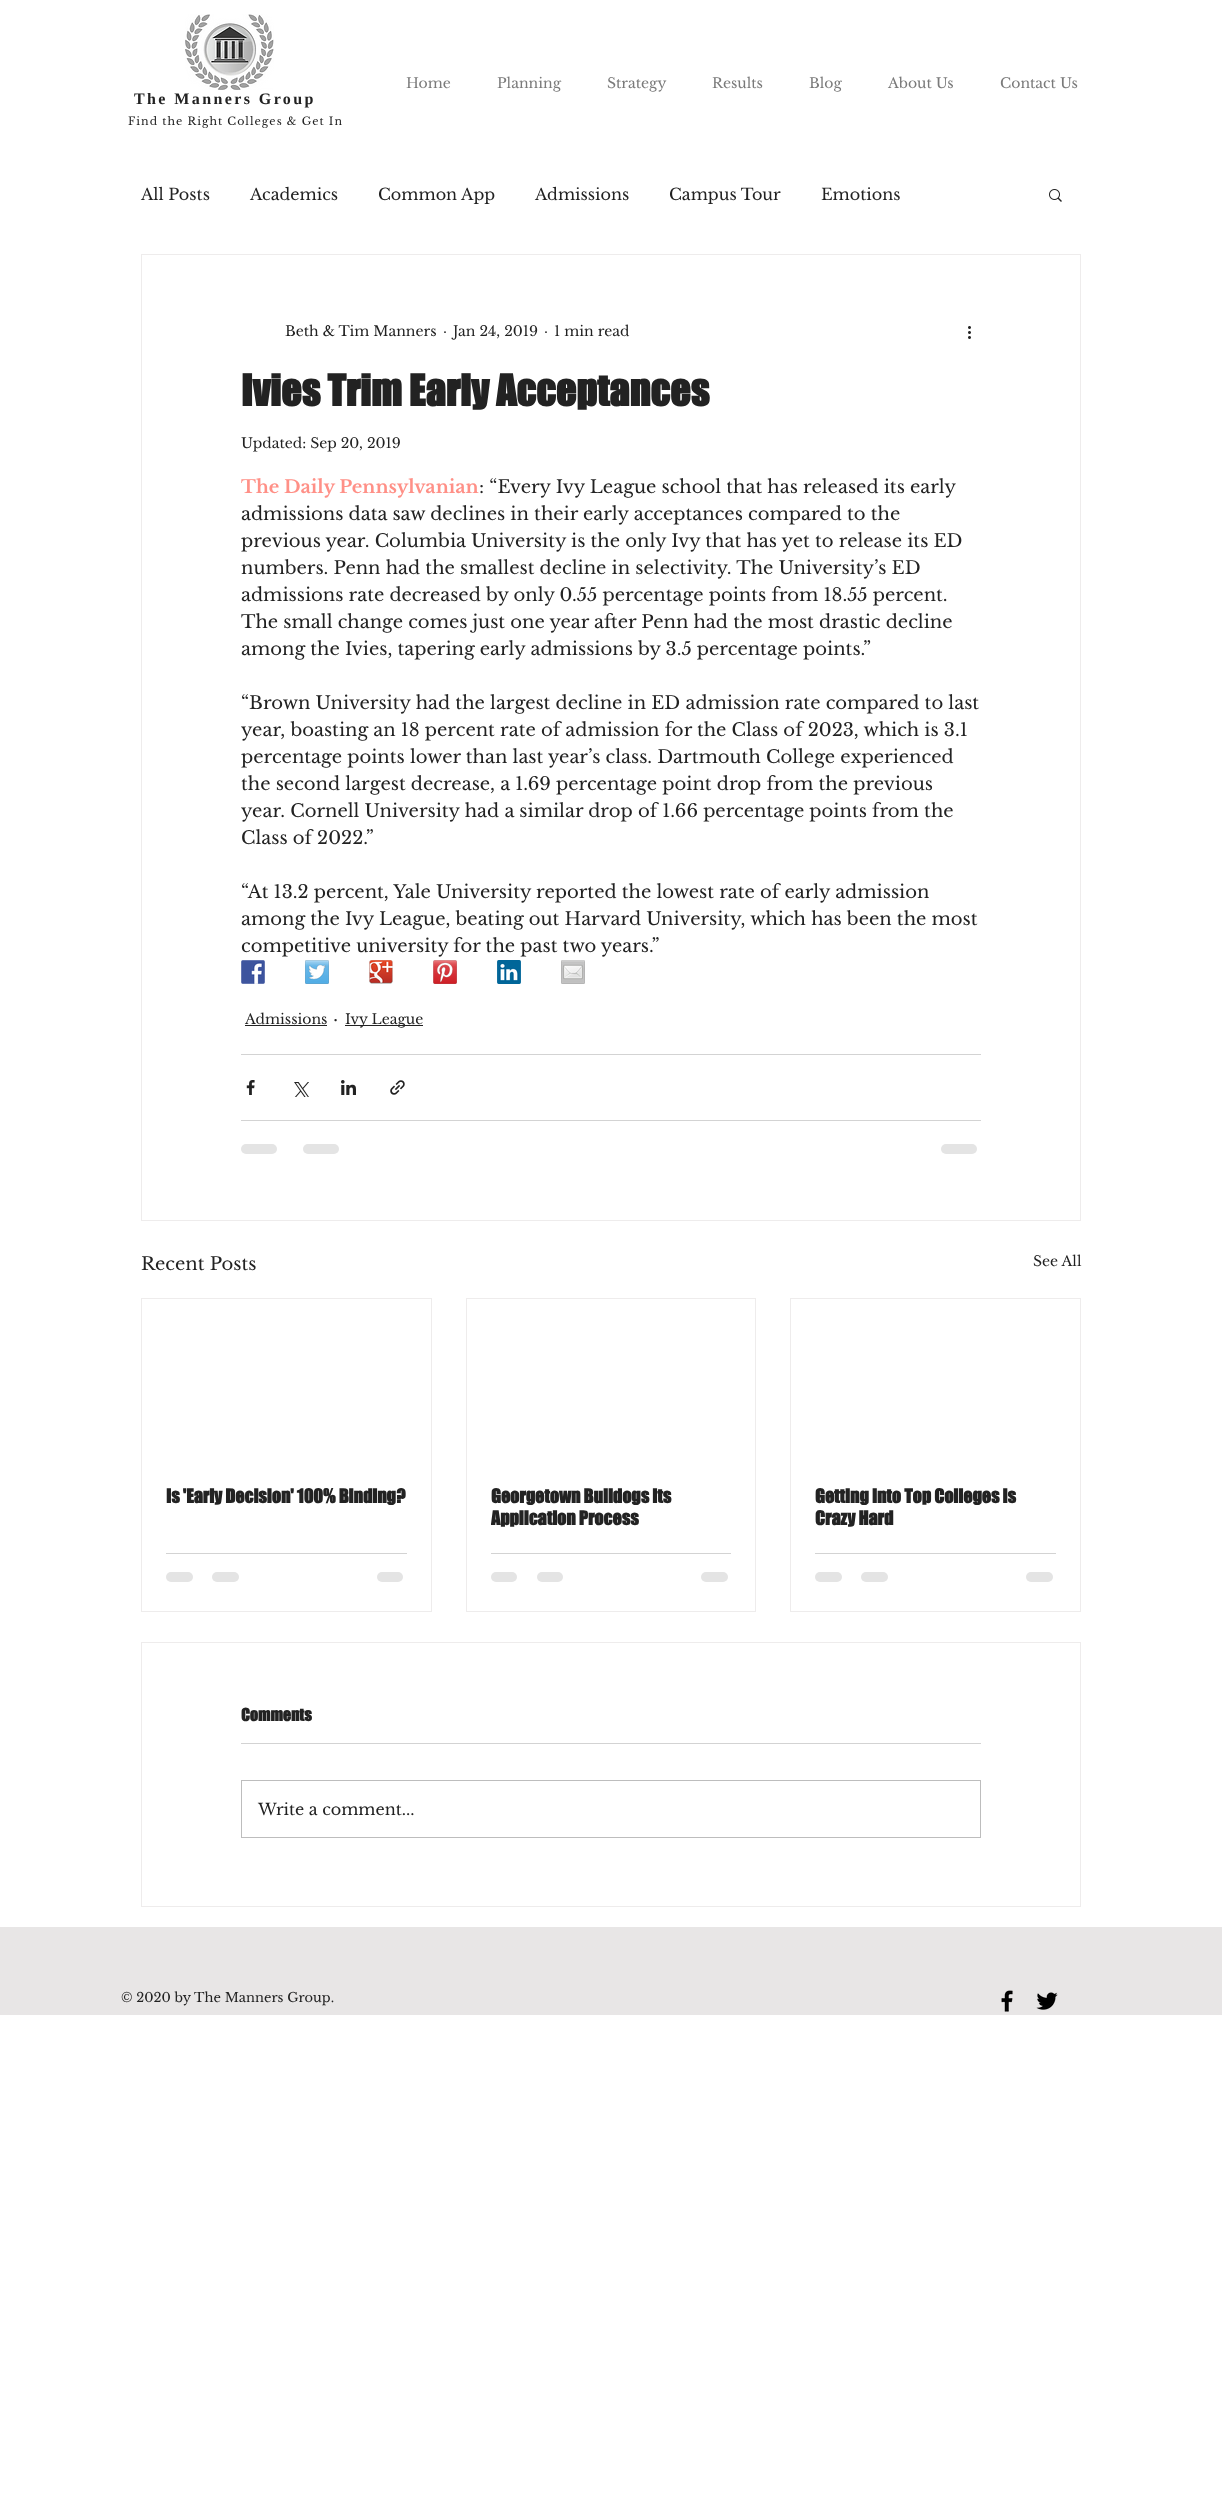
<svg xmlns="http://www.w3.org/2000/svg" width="1222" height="2505">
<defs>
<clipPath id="clip1"><rect x="491" y="1485" width="240" height="44"/></clipPath>
</defs>
<rect width="100%" height="100%" fill="#fff"/>
<image x="185" y="14" width="89" height="76" href="media/1.png"/>
<text x="406" y="88" style="font-family:Libre Baskerville;font-size:14px;fill:#7a7a7a">Home</text>
<text x="497" y="88" style="font-family:Libre Baskerville;font-size:14px;fill:#7a7a7a">Planning</text>
<text x="607" y="88" style="font-family:Libre Baskerville;font-size:14px;fill:#7a7a7a">Strategy</text>
<text x="712" y="88" style="font-family:Libre Baskerville;font-size:14px;fill:#7a7a7a">Results</text>
<text x="809" y="88" style="font-family:Libre Baskerville;font-size:14px;fill:#7a7a7a">Blog</text>
<text x="888" y="88" style="font-family:Libre Baskerville;font-size:14px;fill:#7a7a7a">About Us</text>
<text x="1000" y="88" style="font-family:Libre Baskerville;font-size:14px;fill:#7a7a7a">Contact Us</text>
<text x="134" y="104" style="font-family:Liberation Serif;font-size:16px;font-weight:bold;letter-spacing:2.4px;fill:#222">The Manners Group</text>
<text x="128" y="125" style="font-family:Libre Baskerville;font-size:11px;letter-spacing:1px;fill:#222">Find the Right Colleges &amp; Get In</text>
<text x="141" y="200" style="font-family:Libre Baskerville;font-size:16px;fill:#222">All Posts</text>
<text x="250" y="200" style="font-family:Libre Baskerville;font-size:16px;fill:#222">Academics</text>
<text x="378" y="200" style="font-family:Libre Baskerville;font-size:16px;fill:#222">Common App</text>
<text x="535" y="200" style="font-family:Libre Baskerville;font-size:16px;fill:#222">Admissions</text>
<text x="669" y="200" style="font-family:Libre Baskerville;font-size:16px;fill:#222">Campus Tour</text>
<text x="821" y="200" style="font-family:Libre Baskerville;font-size:16px;fill:#222">Emotions</text>
<image x="1049" y="189" width="13" height="13" href="media/2.png"/>
<rect x="141.5" y="254.5" width="939" height="966" fill="none" stroke="#eeecec"/>
<text x="285" y="336" style="font-family:Libre Baskerville;font-size:14px;fill:#222">Beth &amp; Tim Manners</text>
<text x="443" y="336" style="font-family:Libre Baskerville;font-size:14px;fill:#222">·</text>
<text x="453" y="336" style="font-family:Libre Baskerville;font-size:14px;fill:#222">Jan 24, 2019</text>
<text x="544" y="336" style="font-family:Libre Baskerville;font-size:14px;fill:#222">·</text>
<text x="554" y="336" style="font-family:Libre Baskerville;font-size:14px;fill:#222">1 min read</text>
<image x="968" y="326" width="3" height="13" href="media/3.png"/>
<text x="241" y="406" style="font-family:'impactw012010';font-size:40px;font-weight:bold;fill:#222">Ivies Trim Early Acceptances</text>
<text x="241" y="448" style="font-family:Libre Baskerville;font-size:14px;fill:#222">Updated: Sep 20, 2019</text>
<text x="241" y="493" style="font-family:Libre Baskerville;font-size:18px;font-weight:bold;fill:#ff9087">The Daily Pennsylvanian</text>
<text x="479" y="493" style="font-family:Libre Baskerville;font-size:18px;fill:#222">: “Every Ivy League school that has released its early</text>
<text x="241" y="520" style="font-family:Libre Baskerville;font-size:18px;fill:#222">admissions data saw declines in their early acceptances compared to the</text>
<text x="241" y="547" style="font-family:Libre Baskerville;font-size:18px;fill:#222">previous year. Columbia University is the only Ivy that has yet to release its ED</text>
<text x="241" y="574" style="font-family:Libre Baskerville;font-size:18px;fill:#222">numbers. Penn had the smallest decline in selectivity. The University’s ED</text>
<text x="241" y="601" style="font-family:Libre Baskerville;font-size:18px;fill:#222">admissions rate decreased by only 0.55 percentage points from 18.55 percent.</text>
<text x="241" y="628" style="font-family:Libre Baskerville;font-size:18px;fill:#222">The small change comes just one year after Penn had the most drastic decline</text>
<text x="241" y="655" style="font-family:Libre Baskerville;font-size:18px;fill:#222">among the Ivies, tapering early admissions by 3.5 percentage points.”</text>
<text x="241" y="709" style="font-family:Libre Baskerville;font-size:18px;fill:#222">“Brown University had the largest decline in ED admission rate compared to last</text>
<text x="241" y="736" style="font-family:Libre Baskerville;font-size:18px;fill:#222">year, boasting an 18 percent rate of admission for the Class of 2023, which is 3.1</text>
<text x="241" y="763" style="font-family:Libre Baskerville;font-size:18px;fill:#222">percentage points lower than last year’s class. Dartmouth College experienced</text>
<text x="241" y="790" style="font-family:Libre Baskerville;font-size:18px;fill:#222">the second largest decrease, a 1.69 percentage point drop from the previous</text>
<text x="241" y="817" style="font-family:Libre Baskerville;font-size:18px;fill:#222">year. Cornell University had a similar drop of 1.66 percentage points from the</text>
<text x="241" y="844" style="font-family:Libre Baskerville;font-size:18px;fill:#222">Class of 2022.”</text>
<text x="241" y="898" style="font-family:Libre Baskerville;font-size:18px;fill:#222">“At 13.2 percent, Yale University reported the lowest rate of early admission</text>
<text x="241" y="925" style="font-family:Libre Baskerville;font-size:18px;fill:#222">among the Ivy League, beating out Harvard University, which has been the most</text>
<text x="241" y="952" style="font-family:Libre Baskerville;font-size:18px;fill:#222">competitive university for the past two years.”</text>
<image x="241" y="960" width="24" height="24" href="media/4.png"/>
<image x="305" y="960" width="24" height="24" href="media/5.png"/>
<image x="369" y="960" width="24" height="24" href="media/6.png"/>
<image x="433" y="960" width="24" height="24" href="media/7.png"/>
<image x="497" y="960" width="24" height="24" href="media/8.png"/>
<image x="561" y="960" width="24" height="24" href="media/9.png"/>
<text x="245" y="1024" style="font-family:Libre Baskerville;font-size:14px;fill:#222">Admissions</text>
<rect x="245" y="1025" width="82" height="1" fill="#222"/>
<text x="333" y="1025" style="font-family:Libre Baskerville;font-size:18px;fill:#222">·</text>
<rect x="345" y="1025" width="78" height="1" fill="#222"/>
<text x="345" y="1024" style="font-family:Libre Baskerville;font-size:14px;fill:#222">Ivy League</text>
<rect x="241" y="1054" width="740" height="1" fill="#d3d3d3"/>
<image x="246" y="1080" width="9" height="15" href="media/10.png"/>
<image x="294" y="1082" width="15" height="15" href="media/11.png"/>
<image x="341" y="1080" width="15" height="15" href="media/12.png"/>
<image x="390" y="1080" width="15" height="15" href="media/13.png"/>
<rect x="241" y="1120" width="740" height="1" fill="#d3d3d3"/>
<rect x="241" y="1144" width="36" height="10" rx="5" fill="#e4e4e4"/>
<rect x="303" y="1144" width="36" height="10" rx="5" fill="#e4e4e4"/>
<rect x="941" y="1144" width="36" height="10" rx="5" fill="#e4e4e4"/>
<text x="141" y="1270" style="font-family:Libre Baskerville;font-size:18px;fill:#222">Recent Posts</text>
<text x="1033" y="1266" style="font-family:Libre Baskerville;font-size:14px;fill:#222">See All</text>
<rect x="141.5" y="1298.5" width="290" height="313" fill="none" stroke="#eeecec"/>
<text x="166" y="1503" style="font-family:'impactw012010';font-size:18px;font-weight:bold;fill:#222">Is 'Early Decision' 100% Binding?</text>
<rect x="166" y="1553" width="241" height="1" fill="#d3d3d3"/>
<rect x="166" y="1572" width="27" height="10" rx="5" fill="#e4e4e4"/>
<rect x="212" y="1572" width="27" height="10" rx="5" fill="#e4e4e4"/>
<rect x="377" y="1572" width="26" height="10" rx="5" fill="#e4e4e4"/>
<rect x="466.5" y="1298.5" width="289" height="313" fill="none" stroke="#eeecec"/>
<text x="491" y="1503" style="font-family:'impactw012010';font-size:18px;font-weight:bold;fill:#222">Georgetown Bulldogs its</text>
<g clip-path="url(#clip1)">
<text x="491" y="1525" style="font-family:'impactw012010';font-size:18px;font-weight:bold;fill:#222">Application Process</text>
</g>
<rect x="491" y="1553" width="240" height="1" fill="#d3d3d3"/>
<rect x="491" y="1572" width="26" height="10" rx="5" fill="#e4e4e4"/>
<rect x="537" y="1572" width="26" height="10" rx="5" fill="#e4e4e4"/>
<rect x="701" y="1572" width="27" height="10" rx="5" fill="#e4e4e4"/>
<rect x="790.5" y="1298.5" width="290" height="313" fill="none" stroke="#eeecec"/>
<text x="815" y="1503" style="font-family:'impactw012010';font-size:18px;font-weight:bold;fill:#222">Getting into Top Colleges is</text>
<text x="815" y="1525" style="font-family:'impactw012010';font-size:18px;font-weight:bold;fill:#222">Crazy Hard</text>
<rect x="815" y="1553" width="241" height="1" fill="#d3d3d3"/>
<rect x="815" y="1572" width="27" height="10" rx="5" fill="#e4e4e4"/>
<rect x="861" y="1572" width="27" height="10" rx="5" fill="#e4e4e4"/>
<rect x="1026" y="1572" width="27" height="10" rx="5" fill="#e4e4e4"/>
<rect x="141.5" y="1642.5" width="939" height="264" fill="none" stroke="#eeecec"/>
<text x="241" y="1721" style="font-family:'impactw012010';font-size:16px;font-weight:bold;fill:#222">Comments</text>
<rect x="241" y="1743" width="740" height="1" fill="#d3d3d3"/>
<rect x="241.5" y="1780.5" width="739" height="57" fill="none" stroke="#bdbdbd"/>
<text x="258" y="1815" style="font-family:Libre Baskerville;font-size:16px;fill:#222">Write a comment...</text>
<rect y="1927" width="1222" height="88" fill="#e8e6e6"/>
<text x="121" y="2002" style="font-family:Libre Baskerville;font-size:13px;fill:#222">© 2020 by The Manners Group.</text>
<image x="1001" y="1990" width="12" height="22" href="media/14.png"/>
<image x="1036" y="1992" width="22" height="18" href="media/15.png"/>
</svg>
